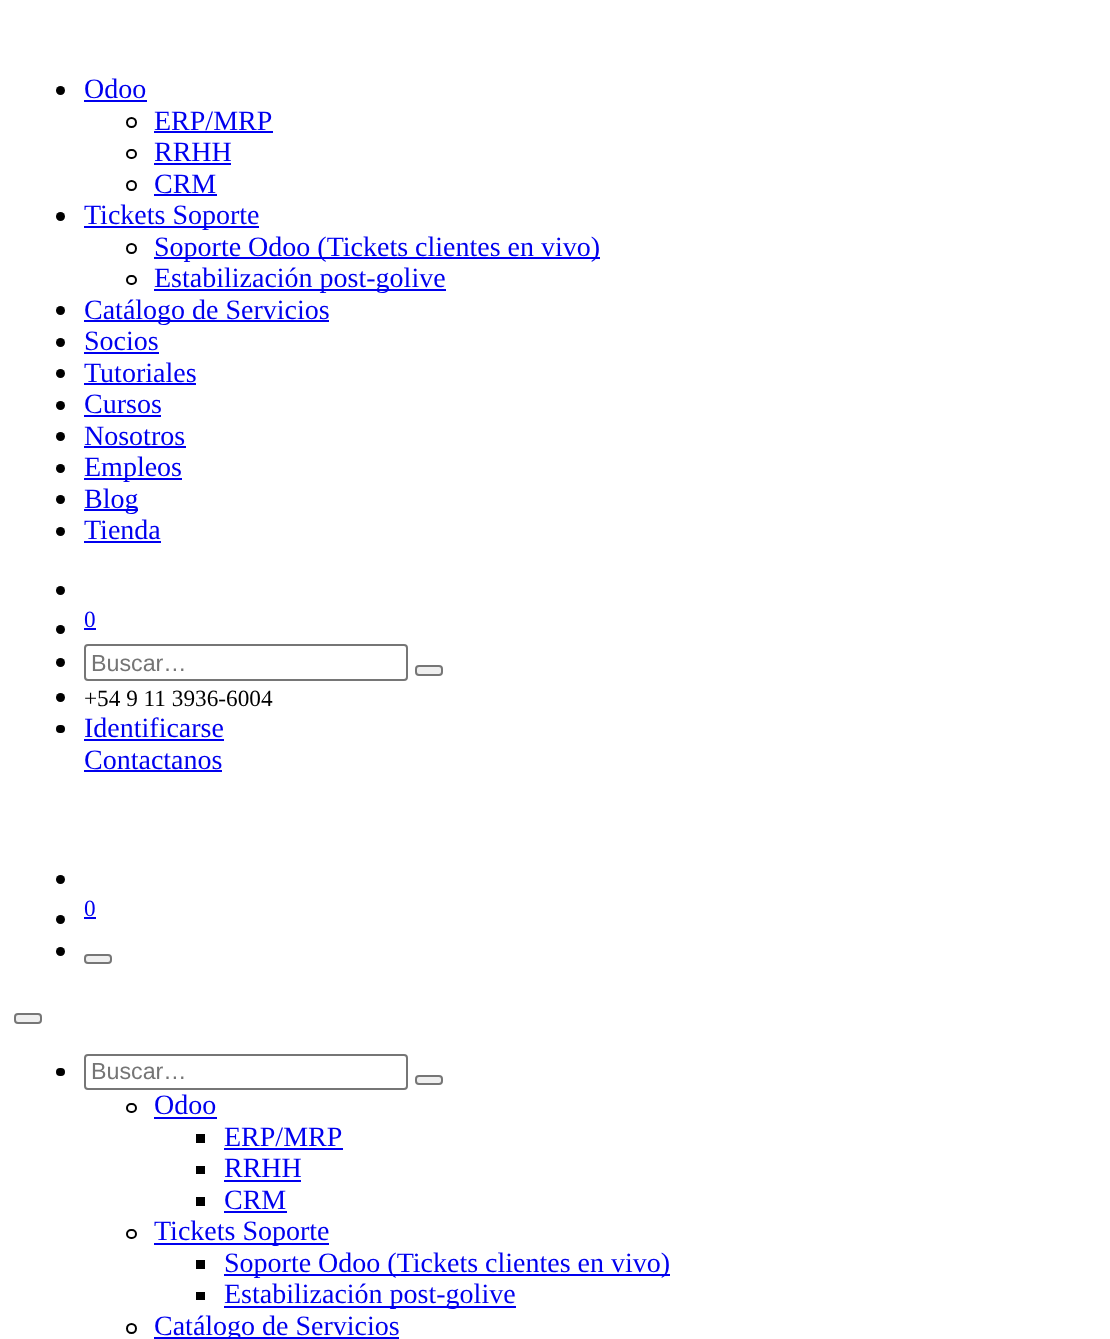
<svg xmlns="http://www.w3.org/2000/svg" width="1110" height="1339">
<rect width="100%" height="100%" fill="#fff"/>
<circle cx="60.5" cy="90.5" r="4.5" fill="#000"/>
<text x="84" y="98" style="font-family:Liberation Serif;font-size:28px;fill:#00e">Odoo</text>
<rect x="84" y="100" width="63" height="2" fill="#00e"/>
<circle cx="131.5" cy="122.5" r="4.5" fill="none" stroke="#000" stroke-width="2"/>
<text x="154" y="130" style="font-family:Liberation Serif;font-size:28px;fill:#00e">ERP/MRP</text>
<rect x="154" y="131" width="119" height="2" fill="#00e"/>
<rect x="127" y="150" width="9" height="8" rx="4" fill="none" stroke="#000" stroke-width="2"/>
<text x="154" y="161" style="font-family:Liberation Serif;font-size:28px;fill:#00e">RRHH</text>
<rect x="154" y="163" width="77" height="2" fill="#00e"/>
<circle cx="131.5" cy="185.5" r="4.5" fill="none" stroke="#000" stroke-width="2"/>
<text x="154" y="193" style="font-family:Liberation Serif;font-size:28px;fill:#00e">CRM</text>
<rect x="154" y="194" width="63" height="2" fill="#00e"/>
<circle cx="60.5" cy="216.5" r="4.5" fill="#000"/>
<rect x="84" y="226" width="175" height="2" fill="#00e"/>
<text x="84" y="224" style="font-family:Liberation Serif;font-size:28px;fill:#00e">Tickets Soporte</text>
<circle cx="131.5" cy="248.5" r="4.5" fill="none" stroke="#000" stroke-width="2"/>
<rect x="154" y="257" width="446" height="2" fill="#00e"/>
<text x="154" y="256" style="font-family:Liberation Serif;font-size:28px;fill:#00e">Soporte Odoo (Tickets clientes en vivo)</text>
<rect x="127" y="276" width="9" height="8" rx="4" fill="none" stroke="#000" stroke-width="2"/>
<rect x="154" y="289" width="292" height="2" fill="#00e"/>
<text x="154" y="287" style="font-family:Liberation Serif;font-size:28px;fill:#00e">Estabilización post-golive</text>
<circle cx="60.5" cy="310.5" r="4.5" fill="#000"/>
<rect x="84" y="320" width="245" height="2" fill="#00e"/>
<text x="84" y="319" style="font-family:Liberation Serif;font-size:28px;fill:#00e">Catálogo de Servicios</text>
<circle cx="60.5" cy="342.5" r="4.5" fill="#000"/>
<text x="84" y="350" style="font-family:Liberation Serif;font-size:28px;fill:#00e">Socios</text>
<rect x="84" y="352" width="75" height="2" fill="#00e"/>
<circle cx="60.5" cy="373.5" r="4.5" fill="#000"/>
<text x="84" y="382" style="font-family:Liberation Serif;font-size:28px;fill:#00e">Tutoriales</text>
<rect x="84" y="383" width="112" height="2" fill="#00e"/>
<circle cx="60.5" cy="405.5" r="4.5" fill="#000"/>
<text x="84" y="413" style="font-family:Liberation Serif;font-size:28px;fill:#00e">Cursos</text>
<rect x="84" y="415" width="77" height="2" fill="#00e"/>
<circle cx="60.5" cy="436.5" r="4.5" fill="#000"/>
<text x="84" y="445" style="font-family:Liberation Serif;font-size:28px;fill:#00e">Nosotros</text>
<rect x="84" y="446" width="102" height="2" fill="#00e"/>
<circle cx="60.5" cy="468.5" r="4.5" fill="#000"/>
<rect x="84" y="478" width="98" height="2" fill="#00e"/>
<text x="84" y="476" style="font-family:Liberation Serif;font-size:28px;fill:#00e">Empleos</text>
<circle cx="60.5" cy="499.5" r="4.5" fill="#000"/>
<rect x="84" y="509" width="54" height="2" fill="#00e"/>
<text x="84" y="508" style="font-family:Liberation Serif;font-size:28px;fill:#00e">Blog</text>
<circle cx="60.5" cy="531.5" r="4.5" fill="#000"/>
<text x="84" y="539" style="font-family:Liberation Serif;font-size:28px;fill:#00e">Tienda</text>
<rect x="84" y="541" width="77" height="2" fill="#00e"/>
<circle cx="60.5" cy="590.5" r="4.5" fill="#000"/>
<text x="84" y="627" style="font-family:Liberation Serif;font-size:23.25px;fill:#00e">0</text>
<rect x="84" y="628" width="12" height="2" fill="#00e"/>
<circle cx="60.5" cy="629.5" r="4.5" fill="#000"/>
<circle cx="60.5" cy="662.5" r="4.5" fill="#000"/>
<rect x="85" y="645" width="322" height="35" rx="3" fill="none" stroke="#767676" stroke-width="2"/>
<text x="91" y="671" style="font-family:Liberation Sans;font-size:23.25px;fill:#757575">Buscar…</text>
<rect x="416" y="666" width="26" height="9" rx="3" fill="#efefef" stroke="#767676" stroke-width="2"/>
<circle cx="60.5" cy="697.5" r="4.5" fill="#000"/>
<text x="84" y="706" style="font-family:Liberation Serif;font-size:23.25px;fill:#000">+54 9 11 3936-6004</text>
<rect x="56" y="725" width="9" height="8" rx="4" fill="#000"/>
<text x="84" y="737" style="font-family:Liberation Serif;font-size:28px;fill:#00e">Identificarse</text>
<rect x="84" y="739" width="140" height="2" fill="#00e"/>
<text x="84" y="769" style="font-family:Liberation Serif;font-size:28px;fill:#00e">Contactanos</text>
<rect x="84" y="770" width="138" height="2" fill="#00e"/>
<circle cx="60.5" cy="879.5" r="4.5" fill="#000"/>
<text x="84" y="916" style="font-family:Liberation Serif;font-size:23.25px;fill:#00e">0</text>
<rect x="84" y="917" width="12" height="2" fill="#00e"/>
<circle cx="60.5" cy="919.5" r="4.5" fill="#000"/>
<circle cx="60.5" cy="951.5" r="4.5" fill="#000"/>
<rect x="85" y="955" width="26" height="8" rx="3" fill="#efefef" stroke="#767676" stroke-width="2"/>
<rect x="15" y="1014" width="26" height="9" rx="3" fill="#efefef" stroke="#767676" stroke-width="2"/>
<rect x="56" y="1068" width="9" height="8" rx="4" fill="#000"/>
<rect x="85" y="1055" width="322" height="34" rx="3" fill="none" stroke="#767676" stroke-width="2"/>
<text x="91" y="1079" style="font-family:Liberation Sans;font-size:23.25px;fill:#757575">Buscar…</text>
<rect x="416" y="1076" width="26" height="8" rx="3" fill="#efefef" stroke="#767676" stroke-width="2"/>
<rect x="127" y="1104" width="9" height="8" rx="4" fill="none" stroke="#000" stroke-width="2"/>
<text x="154" y="1114" style="font-family:Liberation Serif;font-size:28px;fill:#00e">Odoo</text>
<rect x="154" y="1117" width="63" height="2" fill="#00e"/>
<rect x="196" y="1134" width="9" height="9" fill="#000"/>
<text x="224" y="1146" style="font-family:Liberation Serif;font-size:28px;fill:#00e">ERP/MRP</text>
<rect x="224" y="1148" width="119" height="2" fill="#00e"/>
<rect x="196" y="1166" width="9" height="8" fill="#000"/>
<text x="224" y="1177" style="font-family:Liberation Serif;font-size:28px;fill:#00e">RRHH</text>
<rect x="224" y="1180" width="77" height="2" fill="#00e"/>
<rect x="196" y="1197" width="9" height="9" fill="#000"/>
<text x="224" y="1209" style="font-family:Liberation Serif;font-size:28px;fill:#00e">CRM</text>
<rect x="224" y="1211" width="63" height="2" fill="#00e"/>
<rect x="127" y="1230" width="9" height="8" rx="4" fill="none" stroke="#000" stroke-width="2"/>
<rect x="154" y="1243" width="175" height="2" fill="#00e"/>
<text x="154" y="1240" style="font-family:Liberation Serif;font-size:28px;fill:#00e">Tickets Soporte</text>
<rect x="196" y="1260" width="9" height="9" fill="#000"/>
<rect x="224" y="1274" width="446" height="2" fill="#00e"/>
<text x="224" y="1272" style="font-family:Liberation Serif;font-size:28px;fill:#00e">Soporte Odoo (Tickets clientes en vivo)</text>
<rect x="196" y="1292" width="9" height="8" fill="#000"/>
<rect x="224" y="1306" width="292" height="2" fill="#00e"/>
<text x="224" y="1303" style="font-family:Liberation Serif;font-size:28px;fill:#00e">Estabilización post-golive</text>
<circle cx="131.5" cy="1328.5" r="4.5" fill="none" stroke="#000" stroke-width="2"/>
<rect x="154" y="1337" width="245" height="2" fill="#00e"/>
<text x="154" y="1335" style="font-family:Liberation Serif;font-size:28px;fill:#00e">Catálogo de Servicios</text>
</svg>
